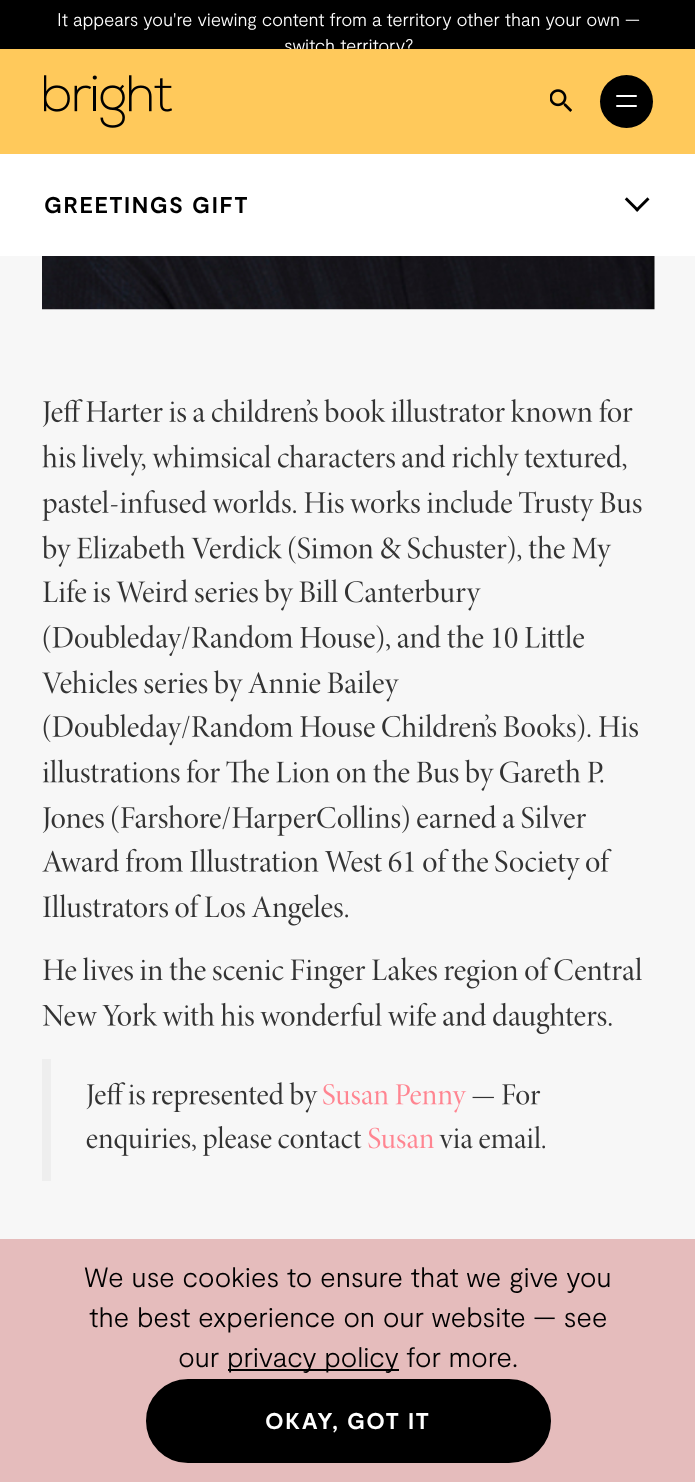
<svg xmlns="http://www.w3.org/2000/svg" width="695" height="1482">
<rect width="100%" height="100%" fill="#f7f7f7"/>
<rect width="695" height="49" fill="#000"/>
<text x="57" y="26" style="font-family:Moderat;font-size:18.4px;font-weight:300;fill:#fff">It appears you're viewing content from a territory other than your own —</text>
<text x="284" y="52" style="font-family:Moderat;font-size:18.4px;font-weight:300;fill:#fff">switch territory?</text>
<rect y="49" width="695" height="105" fill="#ffc95b"/>
<image x="44" y="75" width="128" height="53" href="media/1.png"/>
<image x="550" y="89" width="22" height="23" href="media/2.png"/>
<circle cx="626.5" cy="101.5" r="26.5" fill="#000"/>
<rect x="616" y="95" width="21" height="2" rx="1" fill="#fff"/>
<rect x="616" y="105" width="21" height="2" rx="1" fill="#fff"/>
<rect y="154" width="695" height="102" fill="#fff"/>
<text x="44" y="213" style="font-family:Moderat;font-size:22.75px;font-weight:bold;letter-spacing:1.5px;fill:#000">GREETINGS GIFT</text>
<image x="624" y="197" width="26" height="15" href="media/3.png"/>
<image x="42" y="256" width="613" height="54" href="media/4.png"/>
<image x="42" y="399" width="591" height="28" href="media/5.png"/>
<image x="42" y="444" width="585" height="32" href="media/6.png"/>
<image x="42" y="490" width="600" height="32" href="media/7.png"/>
<image x="42" y="535" width="570" height="32" href="media/8.png"/>
<image x="43" y="579" width="438" height="32" href="media/9.png"/>
<image x="43" y="624" width="541" height="32" href="media/10.png"/>
<image x="42" y="670" width="357" height="32" href="media/11.png"/>
<image x="43" y="714" width="595" height="32" href="media/12.png"/>
<image x="42" y="759" width="562" height="32" href="media/13.png"/>
<image x="42" y="805" width="544" height="31" href="media/14.png"/>
<image x="42" y="848" width="570" height="32" href="media/15.png"/>
<image x="43" y="894" width="305" height="32" href="media/16.png"/>
<image x="43" y="957" width="599" height="32" href="media/17.png"/>
<image x="42" y="1002" width="570" height="32" href="media/18.png"/>
<rect x="42" y="1059" width="9" height="122" fill="#eee"/>
<image x="86" y="1082" width="232" height="31" href="media/19.png"/>
<image x="323" y="1084" width="144" height="29" href="media/20.png"/>
<image x="472" y="1084" width="69" height="21" href="media/21.png"/>
<image x="86" y="1126" width="276" height="30" href="media/22.png"/>
<image x="368" y="1127" width="66" height="22" href="media/23.png"/>
<image x="439" y="1126" width="106" height="23" href="media/24.png"/>
<rect y="1239" width="695" height="243" fill="#e5bcbc"/>
<text x="84" y="1287" style="font-family:Moderat;font-size:28px;font-weight:300;fill:#000">We use cookies to ensure that we give you</text>
<text x="89" y="1327" style="font-family:Moderat;font-size:28px;font-weight:300;fill:#000">the best experience on our website — see</text>
<text x="178" y="1367" style="font-family:Moderat;font-size:28px;font-weight:300;fill:#000">our</text>
<rect x="228" y="1369" width="171" height="2" fill="#000"/>
<text x="227" y="1367" style="font-family:Moderat;font-size:28px;font-weight:300;fill:#000">privacy policy for more.</text>
<rect x="145" y="1378" width="407" height="86" rx="43" fill="#000" stroke="#e5bcbc" stroke-width="2"/>
<text x="265" y="1429" style="font-family:Moderat;font-size:22.75px;font-weight:bold;letter-spacing:1.5px;fill:#fff">OKAY, GOT IT</text>
</svg>
